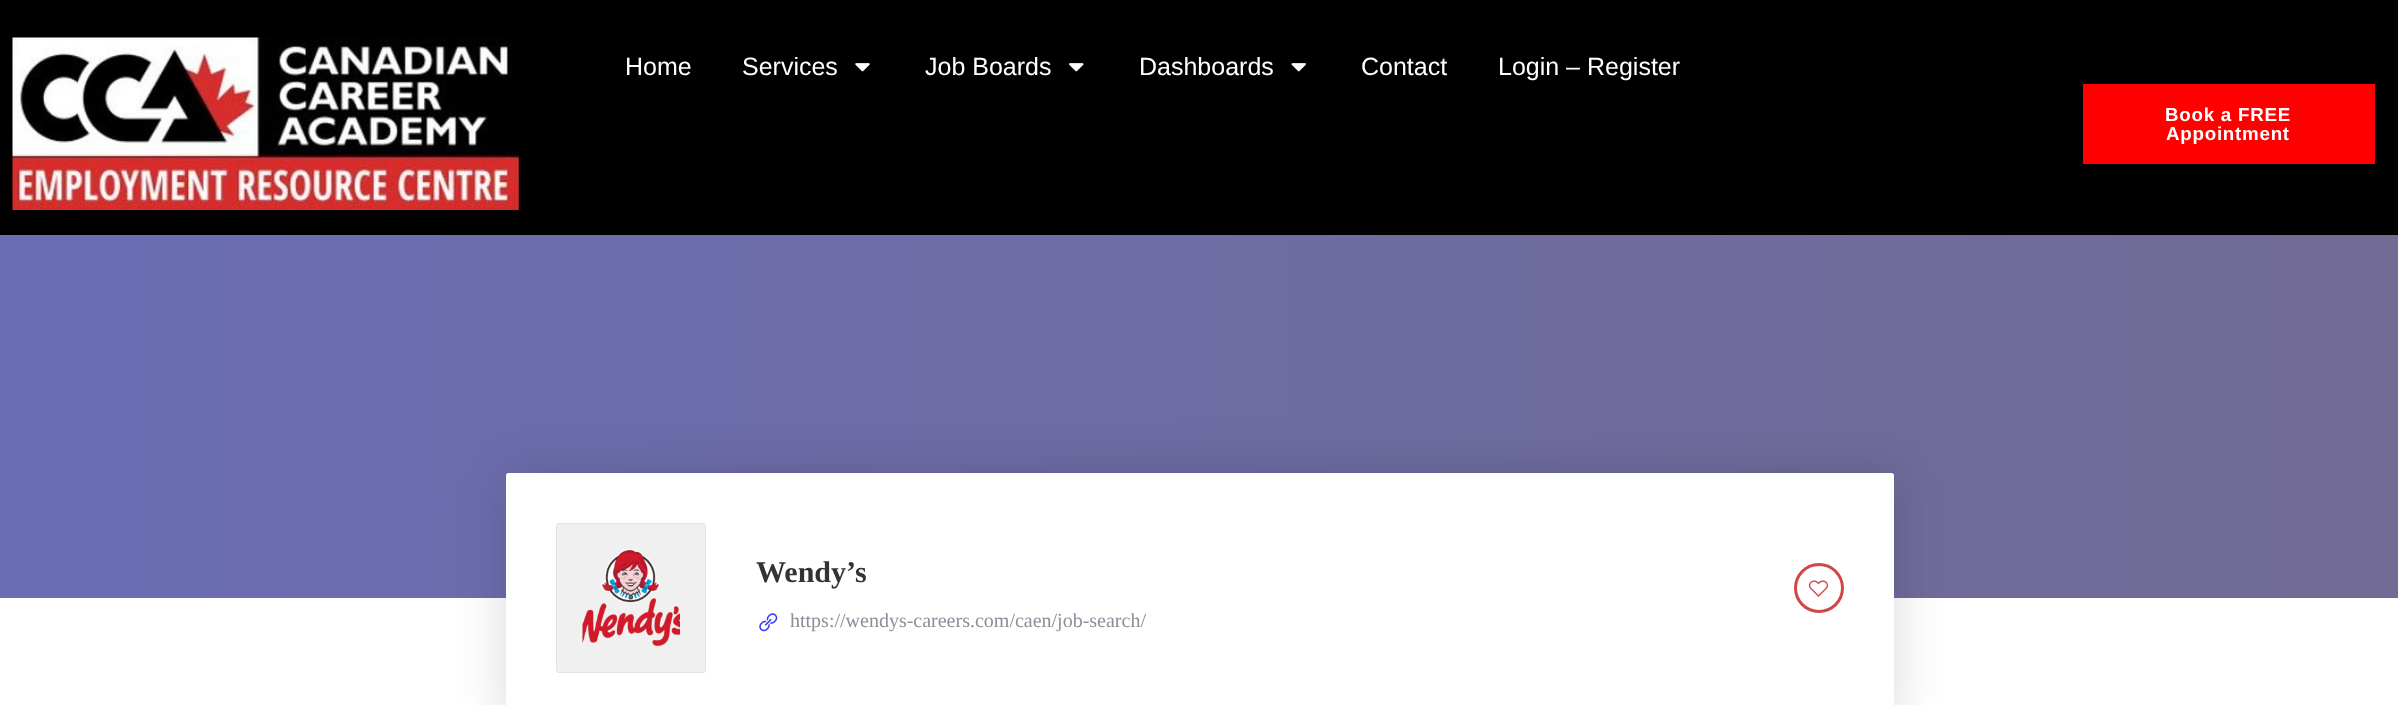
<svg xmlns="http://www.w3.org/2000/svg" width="2398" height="705">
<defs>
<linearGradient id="g1" gradientUnits="userSpaceOnUse" x1="-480" y1="348" x2="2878" y2="347"><stop offset="0" stop-color="#6a6eba"/><stop offset="1" stop-color="#726a8e"/></linearGradient>
</defs>
<rect width="100%" height="100%" fill="#fff"/>
<rect width="2398" height="235" fill="#000"/>
<image x="12" y="37" width="507" height="173" href="media/1.png"/>
<text x="625" y="75" style="font-family:Liberation Sans;font-size:25px;fill:#fff">Home</text>
<text x="742" y="75" style="font-family:Liberation Sans;font-size:25px;fill:#fff">Services</text>
<image x="855" y="63" width="15" height="9" href="media/2.png"/>
<text x="925" y="75" style="font-family:Liberation Sans;font-size:25px;fill:#fff">Job Boards</text>
<image x="1069" y="63" width="15" height="9" href="media/3.png"/>
<text x="1139" y="75" style="font-family:Liberation Sans;font-size:25px;fill:#fff">Dashboards</text>
<image x="1291" y="63" width="15" height="9" href="media/4.png"/>
<text x="1361" y="75" style="font-family:Liberation Sans;font-size:25px;fill:#fff">Contact</text>
<text x="1498" y="75" style="font-family:Liberation Sans;font-size:25px;fill:#fff">Login – Register</text>
<rect x="2083" y="84" width="292" height="80" fill="#f00"/>
<text x="2165" y="121" style="font-family:Liberation Sans;font-size:18.75px;font-weight:bold;letter-spacing:0.75px;fill:#fff">Book a FREE</text>
<text x="2166" y="140" style="font-family:Liberation Sans;font-size:18.75px;font-weight:bold;letter-spacing:0.75px;fill:#fff">Appointment</text>
<rect y="235" width="2398" height="363" fill="url(#g1)"/>
<rect x="506" y="473" width="1388" height="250" rx="2.5" fill="#00000026" filter="blur(25px)"/>
<rect x="506" y="473" width="1388" height="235" rx="2.5" fill="#fff"/>
<rect x="556.5" y="523.5" width="149" height="149" rx="2" fill="#f0f0f0" stroke="#e3e3e3"/>
<image x="582" y="549" width="98" height="98" href="media/5.png"/>
<text x="756" y="582" style="font-family:Liberation Serif;font-size:30px;font-weight:bold;fill:#333">Wendy’s</text>
<image x="759" y="613" width="19" height="19" href="media/6.png"/>
<text x="790" y="627" style="font-family:Liberation Serif;font-size:20px;fill:#948a99">https://wendys-careers.com/caen/job-search/</text>
<circle cx="1819" cy="588" r="23.5" fill="none" stroke="#d04747" stroke-width="3"/>
<image x="1808" y="580" width="21" height="17" href="media/7.png"/>
</svg>
